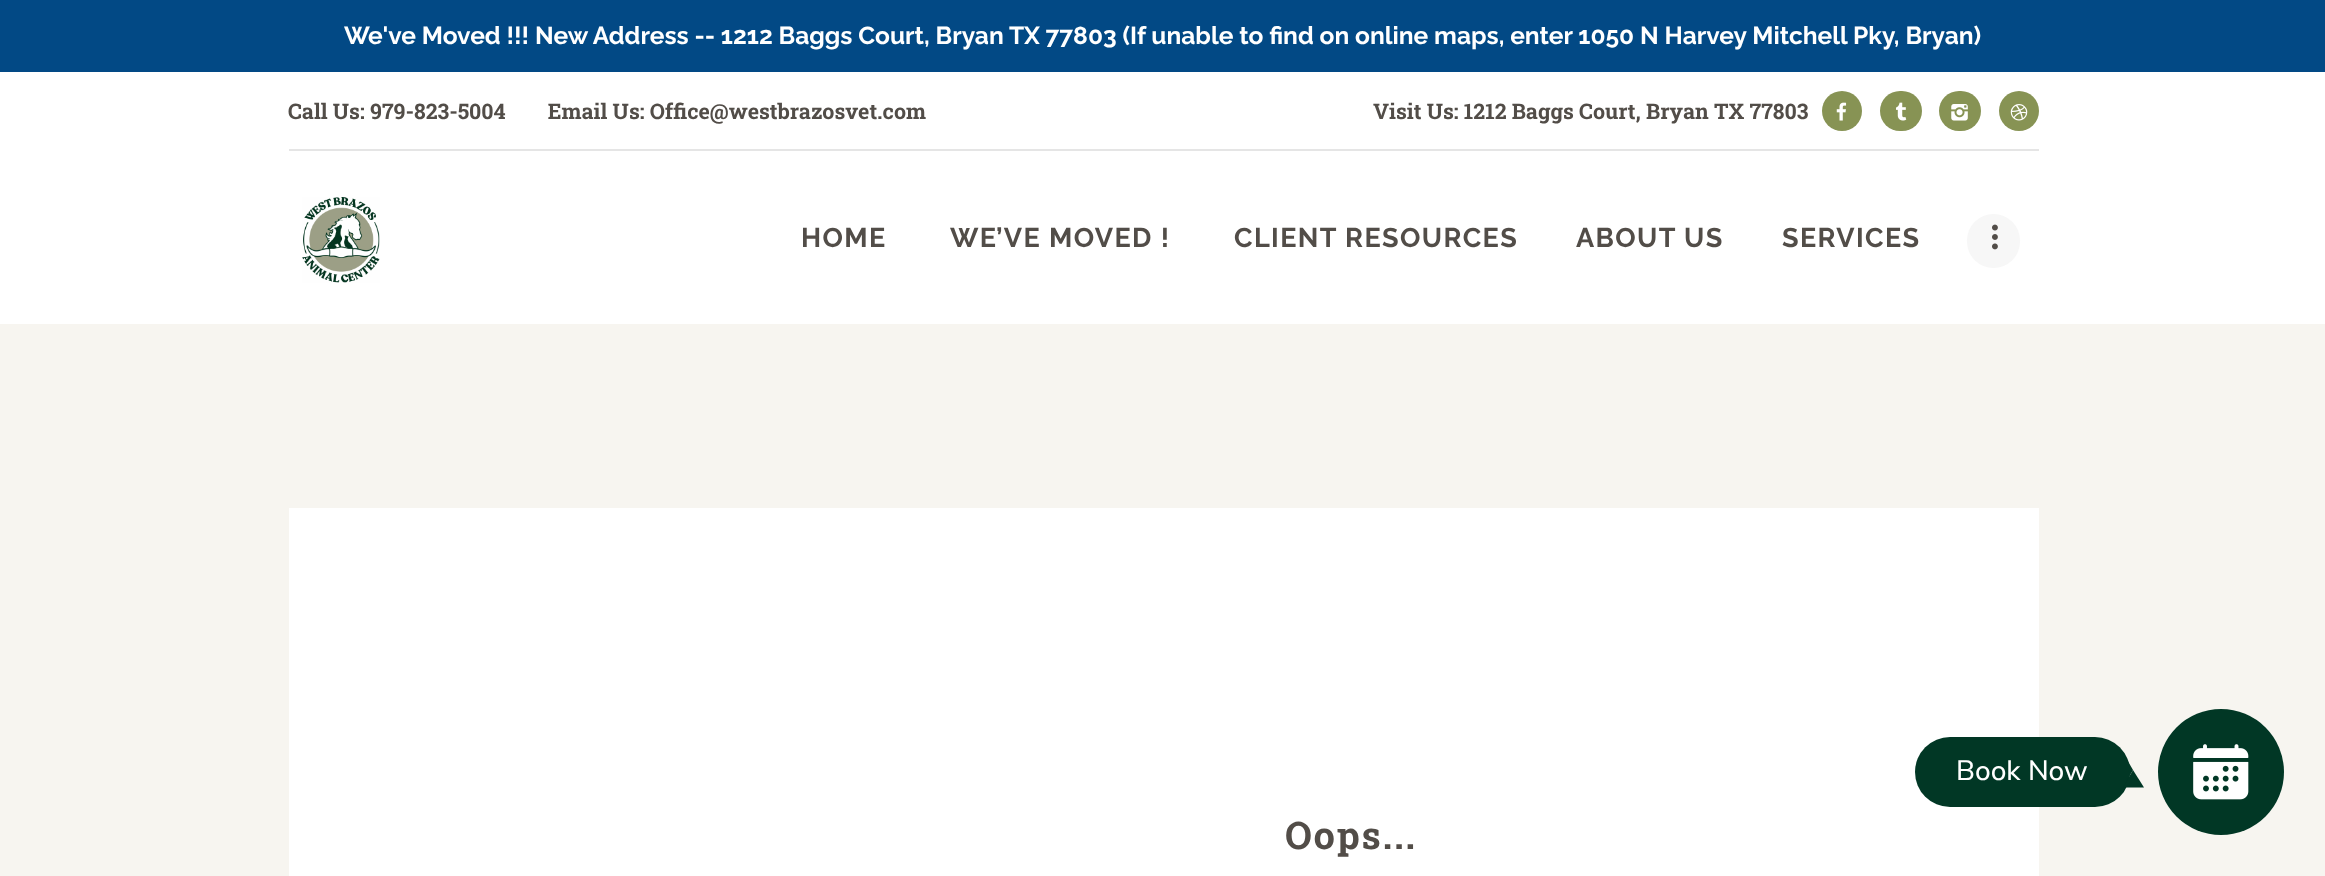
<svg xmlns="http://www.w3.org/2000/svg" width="2325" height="876">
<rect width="100%" height="100%" fill="#f7f5f0"/>
<rect y="72" width="2325" height="252" fill="#fff"/>
<rect width="2325" height="72" fill="#024985"/>
<text x="344" y="44" style="font-family:Raleway;font-size:24.5px;font-weight:bold;fill:#fff">We've Moved !!! New Address -- 1212 Baggs Court, Bryan TX 77803 (If unable to find on online maps, enter 1050 N Harvey Mitchell Pky, Bryan)</text>
<rect x="289" y="149" width="1750" height="2" fill="#e5e5e5"/>
<text x="288" y="119" style="font-family:Roboto Slab;font-size:21.45px;font-weight:bold;fill:#524d48" xml:space="preserve">Call Us: 979-823-5004        Email Us: Office@westbrazosvet.com</text>
<text x="1373" y="119" style="font-family:Roboto Slab;font-size:21.45px;font-weight:bold;fill:#524d48">Visit Us: 1212 Baggs Court, Bryan TX 77803</text>
<circle cx="1842" cy="111" r="20" fill="#879354"/>
<image x="1836" y="102" width="11" height="19" href="media/1.png"/>
<rect x="1880" y="91" width="42" height="40" rx="20" fill="#879354"/>
<image x="1896" y="102" width="11" height="19" href="media/2.png"/>
<rect x="1939" y="91" width="42" height="40" rx="20" fill="#879354"/>
<image x="1951" y="104" width="17" height="17" href="media/3.png"/>
<circle cx="2019" cy="111" r="20" fill="#879354"/>
<image x="2010" y="104" width="18" height="17" href="media/4.png"/>
<image x="302" y="197" width="78" height="86" href="media/5.png"/>
<text x="801" y="247" style="font-family:Raleway;font-size:27px;font-weight:bold;letter-spacing:1.4px;fill:#524d48">HOME</text>
<text x="950" y="247" style="font-family:Raleway;font-size:27px;font-weight:bold;letter-spacing:1.4px;fill:#524d48">WE’VE MOVED !</text>
<text x="1234" y="247" style="font-family:Raleway;font-size:27px;font-weight:bold;letter-spacing:1.4px;fill:#524d48">CLIENT RESOURCES</text>
<text x="1576" y="247" style="font-family:Raleway;font-size:27px;font-weight:bold;letter-spacing:1.4px;fill:#524d48">ABOUT US</text>
<text x="1782" y="247" style="font-family:Raleway;font-size:27px;font-weight:bold;letter-spacing:1.4px;fill:#524d48">SERVICES</text>
<rect x="1967" y="214" width="53" height="54" rx="26.5" fill="#f7f7f7"/>
<image x="1992" y="224" width="6" height="26" href="media/6.png"/>
<rect x="289" y="508" width="1750" height="368" fill="#fff"/>
<text x="1285" y="849" style="font-family:Roboto Slab;font-size:38px;font-weight:bold;letter-spacing:1.75px;fill:#524d48">Oops...</text>
<rect x="1915" y="737" width="215" height="70" rx="35" fill="#013725"/>
<text x="1956" y="780" style="font-family:Nunito Sans;font-size:28px;font-weight:500;fill:#fff">Book Now</text>
<path d="M2144 787.5h-21l10-17.5z" fill="#013725"/>
<path d="M2123 787.5v-35l10 17.5z" fill="#013725"/>
<circle cx="2221" cy="772" r="63" fill="#013725"/>
<image x="2193" y="744" width="56" height="56" href="media/7.png"/>
</svg>
